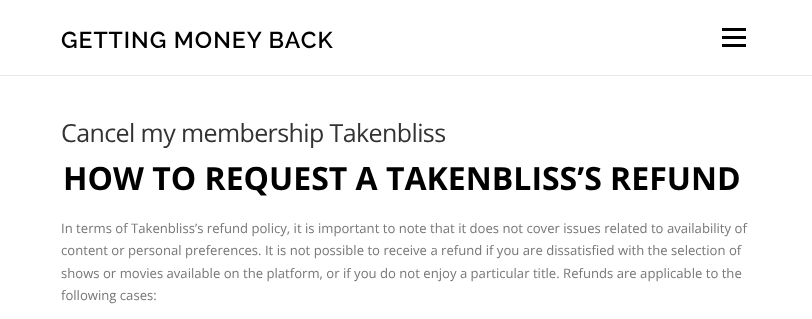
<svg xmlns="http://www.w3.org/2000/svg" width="812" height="319">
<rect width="100%" height="100%" fill="#fff"/>
<text x="61" y="48" style="font-family:Raleway;font-size:23px;font-weight:600;letter-spacing:1px;fill:#000">GETTING MONEY BACK</text>
<rect x="722" y="36" width="24" height="3" fill="#000"/>
<rect x="722" y="28" width="24" height="3" fill="#000"/>
<rect x="722" y="44" width="24" height="3" fill="#000"/>
<rect y="75" width="812" height="1" fill="#e9e9e9"/>
<text x="61" y="142" style="font-family:Open Sans;font-size:25px;letter-spacing:-0.6px;fill:#333">Cancel my membership Takenbliss</text>
<text x="63" y="190" style="font-family:Open Sans;font-size:32px;font-weight:bold;fill:#000">HOW TO REQUEST A TAKENBLISS’S REFUND</text>
<text x="61" y="233" style="font-family:Open Sans;font-size:13.12px;fill:#777">In terms of Takenbliss’s refund policy, it is important to note that it does not cover issues related to availability of</text>
<text x="61" y="255" style="font-family:Open Sans;font-size:13.12px;fill:#777">content or personal preferences. It is not possible to receive a refund if you are dissatisfied with the selection of</text>
<text x="61" y="278" style="font-family:Open Sans;font-size:13.12px;fill:#777">shows or movies available on the platform, or if you do not enjoy a particular title. Refunds are applicable to the</text>
<text x="61" y="300" style="font-family:Open Sans;font-size:13.12px;fill:#777">following cases:</text>
</svg>
